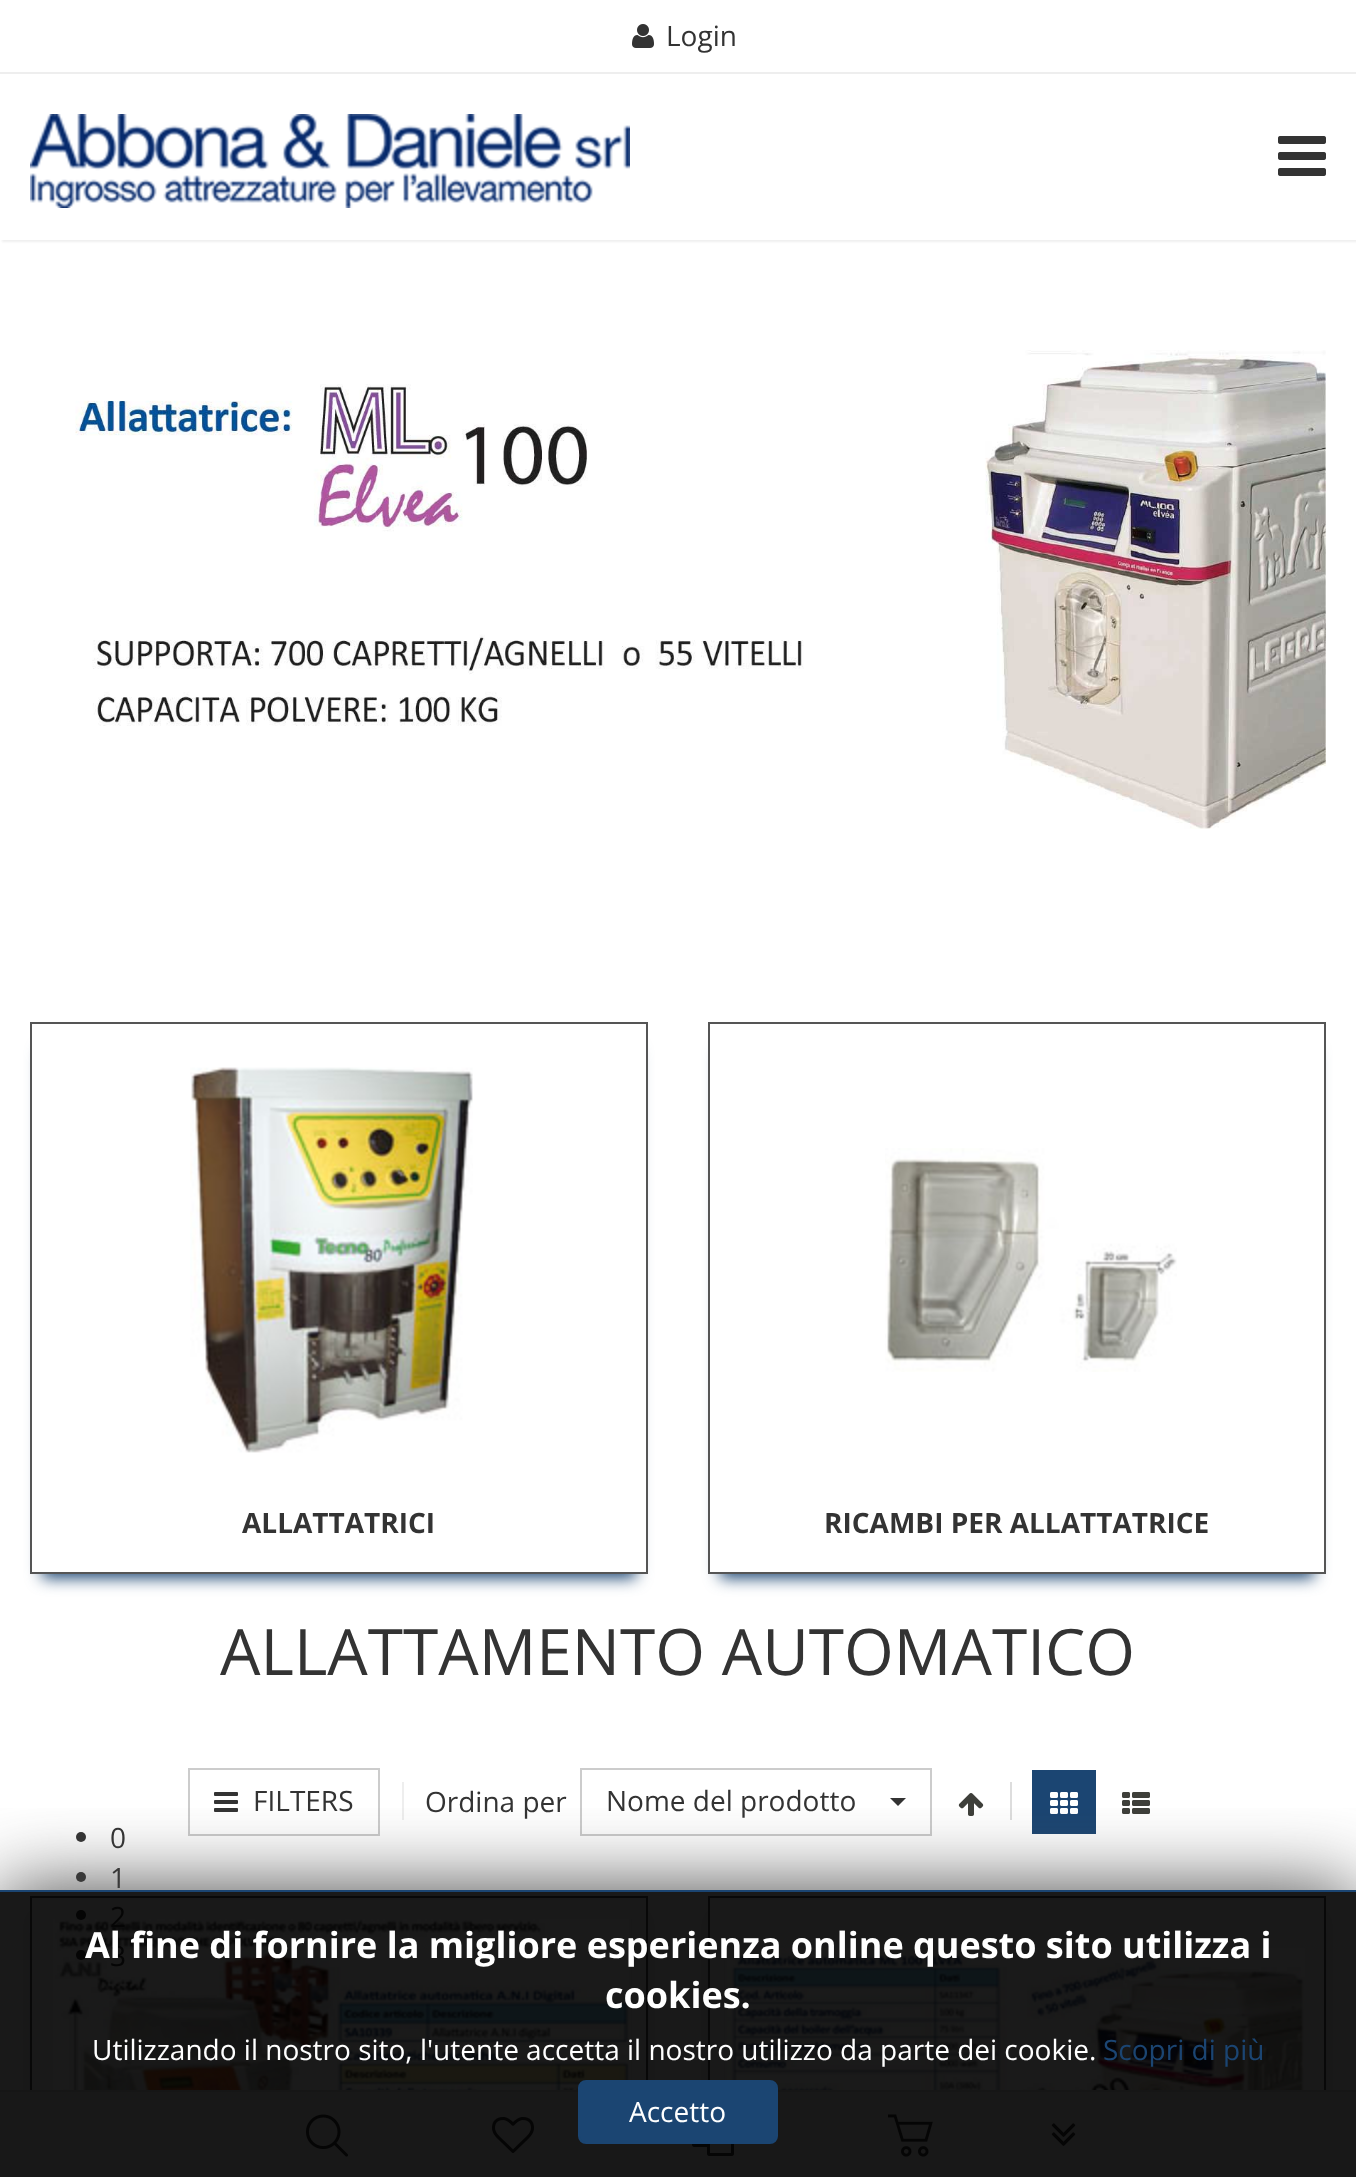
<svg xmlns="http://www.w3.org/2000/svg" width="1356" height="2177">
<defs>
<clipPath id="clip1"><rect x="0" y="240" width="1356" height="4"/></clipPath>
<clipPath id="clip2"><path d="M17 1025h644v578h-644zm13-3h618v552h-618z" clip-rule="evenodd"/></clipPath>
<clipPath id="clip3"><path d="M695 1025h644v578h-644zm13-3h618v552h-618z" clip-rule="evenodd"/></clipPath>
<clipPath id="clip4"><path d="M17 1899h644v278h-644zm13-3h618v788h-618z" clip-rule="evenodd"/></clipPath>
<clipPath id="clip5"><path d="M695 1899h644v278h-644zm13-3h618v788h-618z" clip-rule="evenodd"/></clipPath>
<clipPath id="clip6"><rect x="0" y="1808" width="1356" height="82"/></clipPath>
</defs>
<rect width="100%" height="100%" fill="#fff"/>
<rect y="1892" width="1356" height="198" fill="#191919"/>
<rect y="72" width="1356" height="2" fill="#eee"/>
<image x="632" y="24" width="22" height="24" href="media/1.png"/>
<text x="666" y="46" style="font-family:Open Sans;font-size:28px;fill:#333">Login</text>
<g clip-path="url(#clip1)">
<rect x="2" y="76" width="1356" height="166" fill="#efefef" filter="blur(1px)"/>
</g>
<image x="30" y="114" width="600" height="94" href="media/2.png"/>
<image x="1278" y="136" width="48" height="40" href="media/3.png"/>
<g clip-path="url(#clip2)">
<rect x="42" y="1050" width="594" height="528" fill="#1b4572" filter="blur(8px)"/>
</g>
<rect x="31" y="1023" width="616" height="550" fill="none" stroke="#555" stroke-width="2"/>
<image x="190" y="1067" width="283" height="386" href="media/4.png"/>
<text x="242" y="1533" style="font-family:Open Sans;font-size:28px;font-weight:bold;fill:#333">ALLATTATRICI</text>
<g clip-path="url(#clip3)">
<rect x="720" y="1050" width="594" height="528" fill="#1b4572" filter="blur(8px)"/>
</g>
<rect x="709" y="1023" width="616" height="550" fill="none" stroke="#555" stroke-width="2"/>
<image x="885" y="1148" width="292" height="224" href="media/5.png"/>
<text x="824" y="1533" style="font-family:Open Sans;font-size:28px;font-weight:bold;fill:#333">RICAMBI PER ALLATTATRICE</text>
<text x="220" y="1675" style="font-family:Open Sans;font-size:64px;fill:#333">ALLATTAMENTO AUTOMATICO</text>
<rect x="189" y="1769" width="190" height="66" fill="none" stroke="#ccc" stroke-width="2"/>
<image x="214" y="1792" width="24" height="20" href="media/6.png"/>
<text x="253" y="1811" style="font-family:Open Sans;font-size:28px;fill:#333">FILTERS</text>
<rect x="402" y="1782" width="2" height="38" fill="#eee"/>
<text x="425" y="1812" style="font-family:Open Sans;font-size:28px;fill:#333">Ordina per</text>
<rect x="581" y="1769" width="350" height="66" fill="none" stroke="#ccc" stroke-width="2"/>
<text x="606" y="1811" style="font-family:Open Sans;font-size:28px;fill:#333">Nome del prodotto</text>
<path d="M890 1798h16l-8 8z" fill="#333"/>
<image x="958" y="1793" width="26" height="23" href="media/7.png"/>
<rect x="1010" y="1782" width="2" height="38" fill="#ddd"/>
<rect x="1032" y="1770" width="64" height="64" fill="#1b4572"/>
<image x="1050" y="1792" width="28" height="22" href="media/8.png"/>
<image x="1122" y="1792" width="28" height="22" href="media/9.png"/>
<g clip-path="url(#clip4)">
<rect x="42" y="1924" width="594" height="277" fill="#03070b" filter="blur(8px)"/>
</g>
<rect x="31" y="1897" width="616" height="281" fill="none" stroke="#080808" stroke-width="2"/>
<image x="53" y="1919" width="579" height="171" href="media/10.png"/>
<g clip-path="url(#clip5)">
<rect x="720" y="1924" width="594" height="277" fill="#03070b" filter="blur(8px)"/>
</g>
<rect x="709" y="1897" width="616" height="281" fill="none" stroke="#080808" stroke-width="2"/>
<image x="724" y="1948" width="581" height="142" href="media/11.png"/>
<image x="75" y="350" width="1251" height="479" href="media/12.png"/>
<circle cx="81" cy="1837" r="5" fill="#333"/>
<text x="110" y="1848" style="font-family:Open Sans;font-size:28px;fill:#333">0</text>
<circle cx="81" cy="1877" r="5" fill="#333"/>
<text x="110" y="1888" style="font-family:Open Sans;font-size:28px;fill:#333">1</text>
<circle cx="81" cy="1915" r="5" fill="#050505"/>
<text x="110" y="1927" style="font-family:Open Sans;font-size:28px;fill:#050505">2</text>
<circle cx="81" cy="1955" r="5" fill="#050505"/>
<text x="110" y="1966" style="font-family:Open Sans;font-size:28px;fill:#050505">3</text>
<rect y="2092" width="1356" height="85" fill="#181818"/>
<rect y="2090" width="1356" height="2" fill="#161616"/>
<image x="306" y="2114" width="42" height="43" href="media/13.png"/>
<image x="492" y="2117" width="42" height="36" href="media/14.png"/>
<image x="888" y="2114" width="45" height="43" href="media/15.png"/>
<image x="1051" y="2123" width="25" height="23" href="media/16.png"/>
<image x="692" y="2144" width="42" height="12" href="media/17.png"/>
<g clip-path="url(#clip6)">
<rect y="1890" width="1356" height="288" fill="#444" filter="blur(40px)"/>
</g>
<rect y="1890" width="1356" height="2" fill="#1b4572"/>
<text x="85" y="1958" style="font-family:Open Sans;font-size:36px;font-weight:bold;fill:#fff">Al fine di fornire la migliore esperienza online questo sito utilizza i</text>
<text x="605" y="2008" style="font-family:Open Sans;font-size:36px;font-weight:bold;fill:#fff">cookies.</text>
<text x="92" y="2060" style="font-family:Open Sans;font-size:28px;fill:#fff">Utilizzando il nostro sito, l'utente accetta il nostro utilizzo da parte dei cookie.</text>
<text x="1103" y="2060" style="font-family:Open Sans;font-size:28px;fill:#1b4572">Scopri di più</text>
<rect x="579" y="2081" width="198" height="62" rx="7" fill="#1b4572" stroke="#1b4572" stroke-width="2"/>
<text x="629" y="2122" style="font-family:Open Sans;font-size:28px;fill:#fff">Accetto</text>
</svg>
